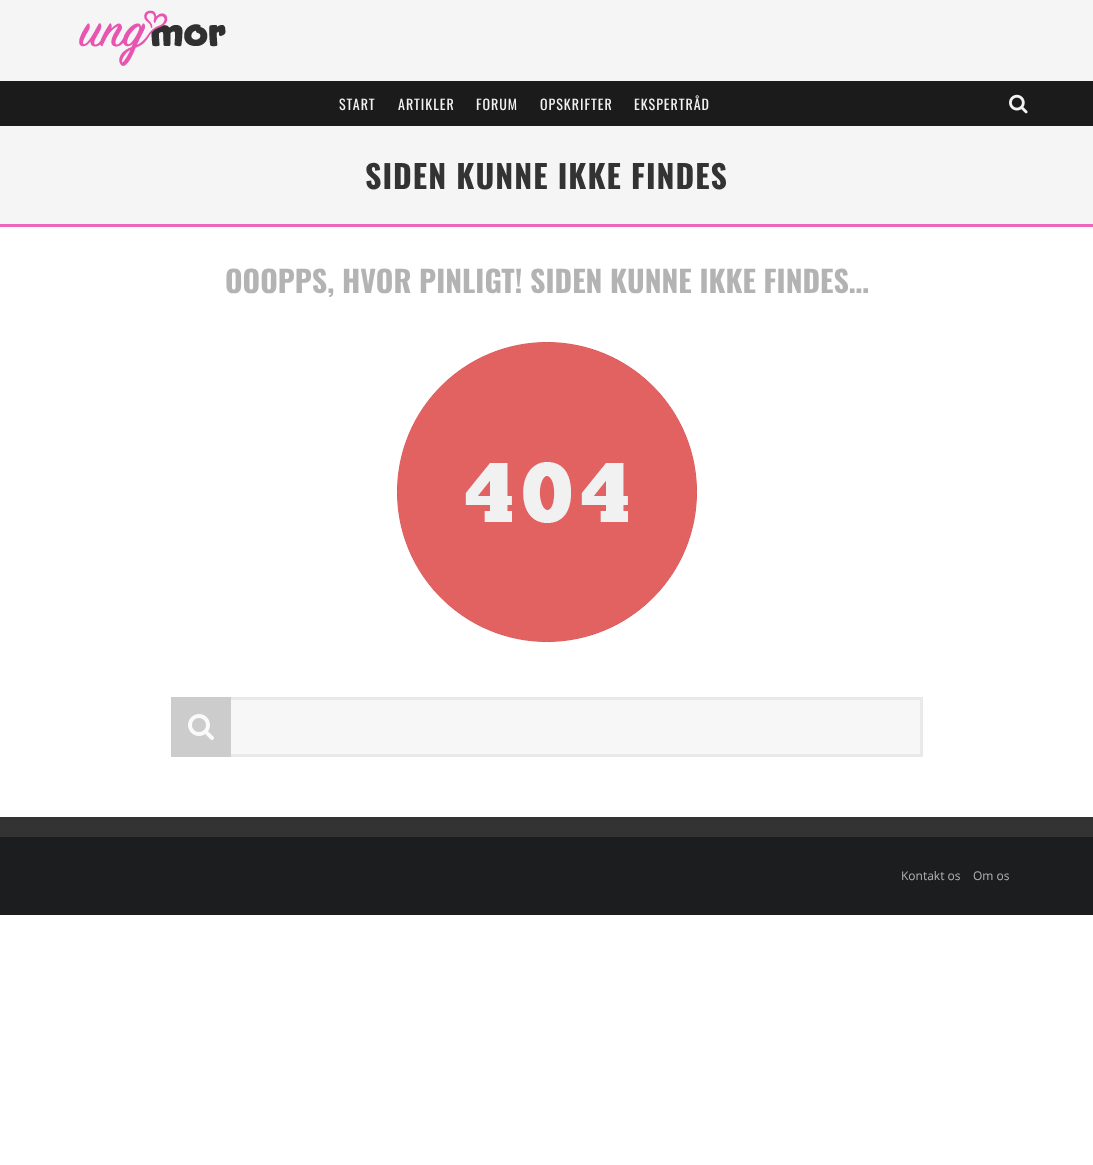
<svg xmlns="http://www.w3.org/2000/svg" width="1093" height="1165">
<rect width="100%" height="100%" fill="#fff"/>
<rect width="1093" height="81" fill="#f5f5f5"/>
<image x="79" y="10" width="147" height="56" href="media/1.png"/>
<rect y="81" width="1093" height="45" fill="#1b1b1b"/>
<text x="339" y="110" style="font-family:Oswald;font-size:14px;letter-spacing:1px;fill:#f2f2f2">START</text>
<text x="398" y="110" style="font-family:Oswald;font-size:14px;letter-spacing:1px;fill:#f2f2f2">ARTIKLER</text>
<text x="476" y="110" style="font-family:Oswald;font-size:14px;letter-spacing:1px;fill:#f2f2f2">FORUM</text>
<text x="540" y="110" style="font-family:Oswald;font-size:14px;letter-spacing:1px;fill:#f2f2f2">OPSKRIFTER</text>
<text x="634" y="110" style="font-family:Oswald;font-size:14px;letter-spacing:1px;fill:#f2f2f2">EKSPERTRÅD</text>
<image x="1009" y="94" width="19" height="20" href="media/2.png"/>
<rect y="126" width="1093" height="98" fill="#f5f5f5"/>
<rect y="224" width="1093" height="3" fill="#ed65bd"/>
<text x="365" y="189" style="font-family:Oswald;font-size:32px;font-weight:bold;letter-spacing:1px;fill:#333">SIDEN KUNNE IKKE FINDES</text>
<text x="225" y="293" style="font-family:Oswald;font-size:30px;font-weight:bold;fill:#b3b3b3">OOOPPS, HVOR PINLIGT! SIDEN KUNNE IKKE FINDES…</text>
<image x="397" y="342" width="300" height="300" href="media/3.png"/>
<rect x="231" y="700" width="689" height="54" fill="#f7f7f7"/>
<rect x="172.5" y="698.5" width="749" height="57" fill="none" stroke="#e9e9e9" stroke-width="3"/>
<rect x="171" y="697" width="60" height="60" fill="#ccc"/>
<image x="188" y="714" width="26" height="26" href="media/4.png"/>
<rect y="817" width="1093" height="20" fill="#333"/>
<rect y="837" width="1093" height="78" fill="#1c1d1e"/>
<text x="901" y="880" style="font-family:Open Sans;font-size:12px;fill:#b3b3b3">Kontakt os</text>
<text x="973" y="880" style="font-family:Open Sans;font-size:12px;fill:#b3b3b3">Om os</text>
</svg>
